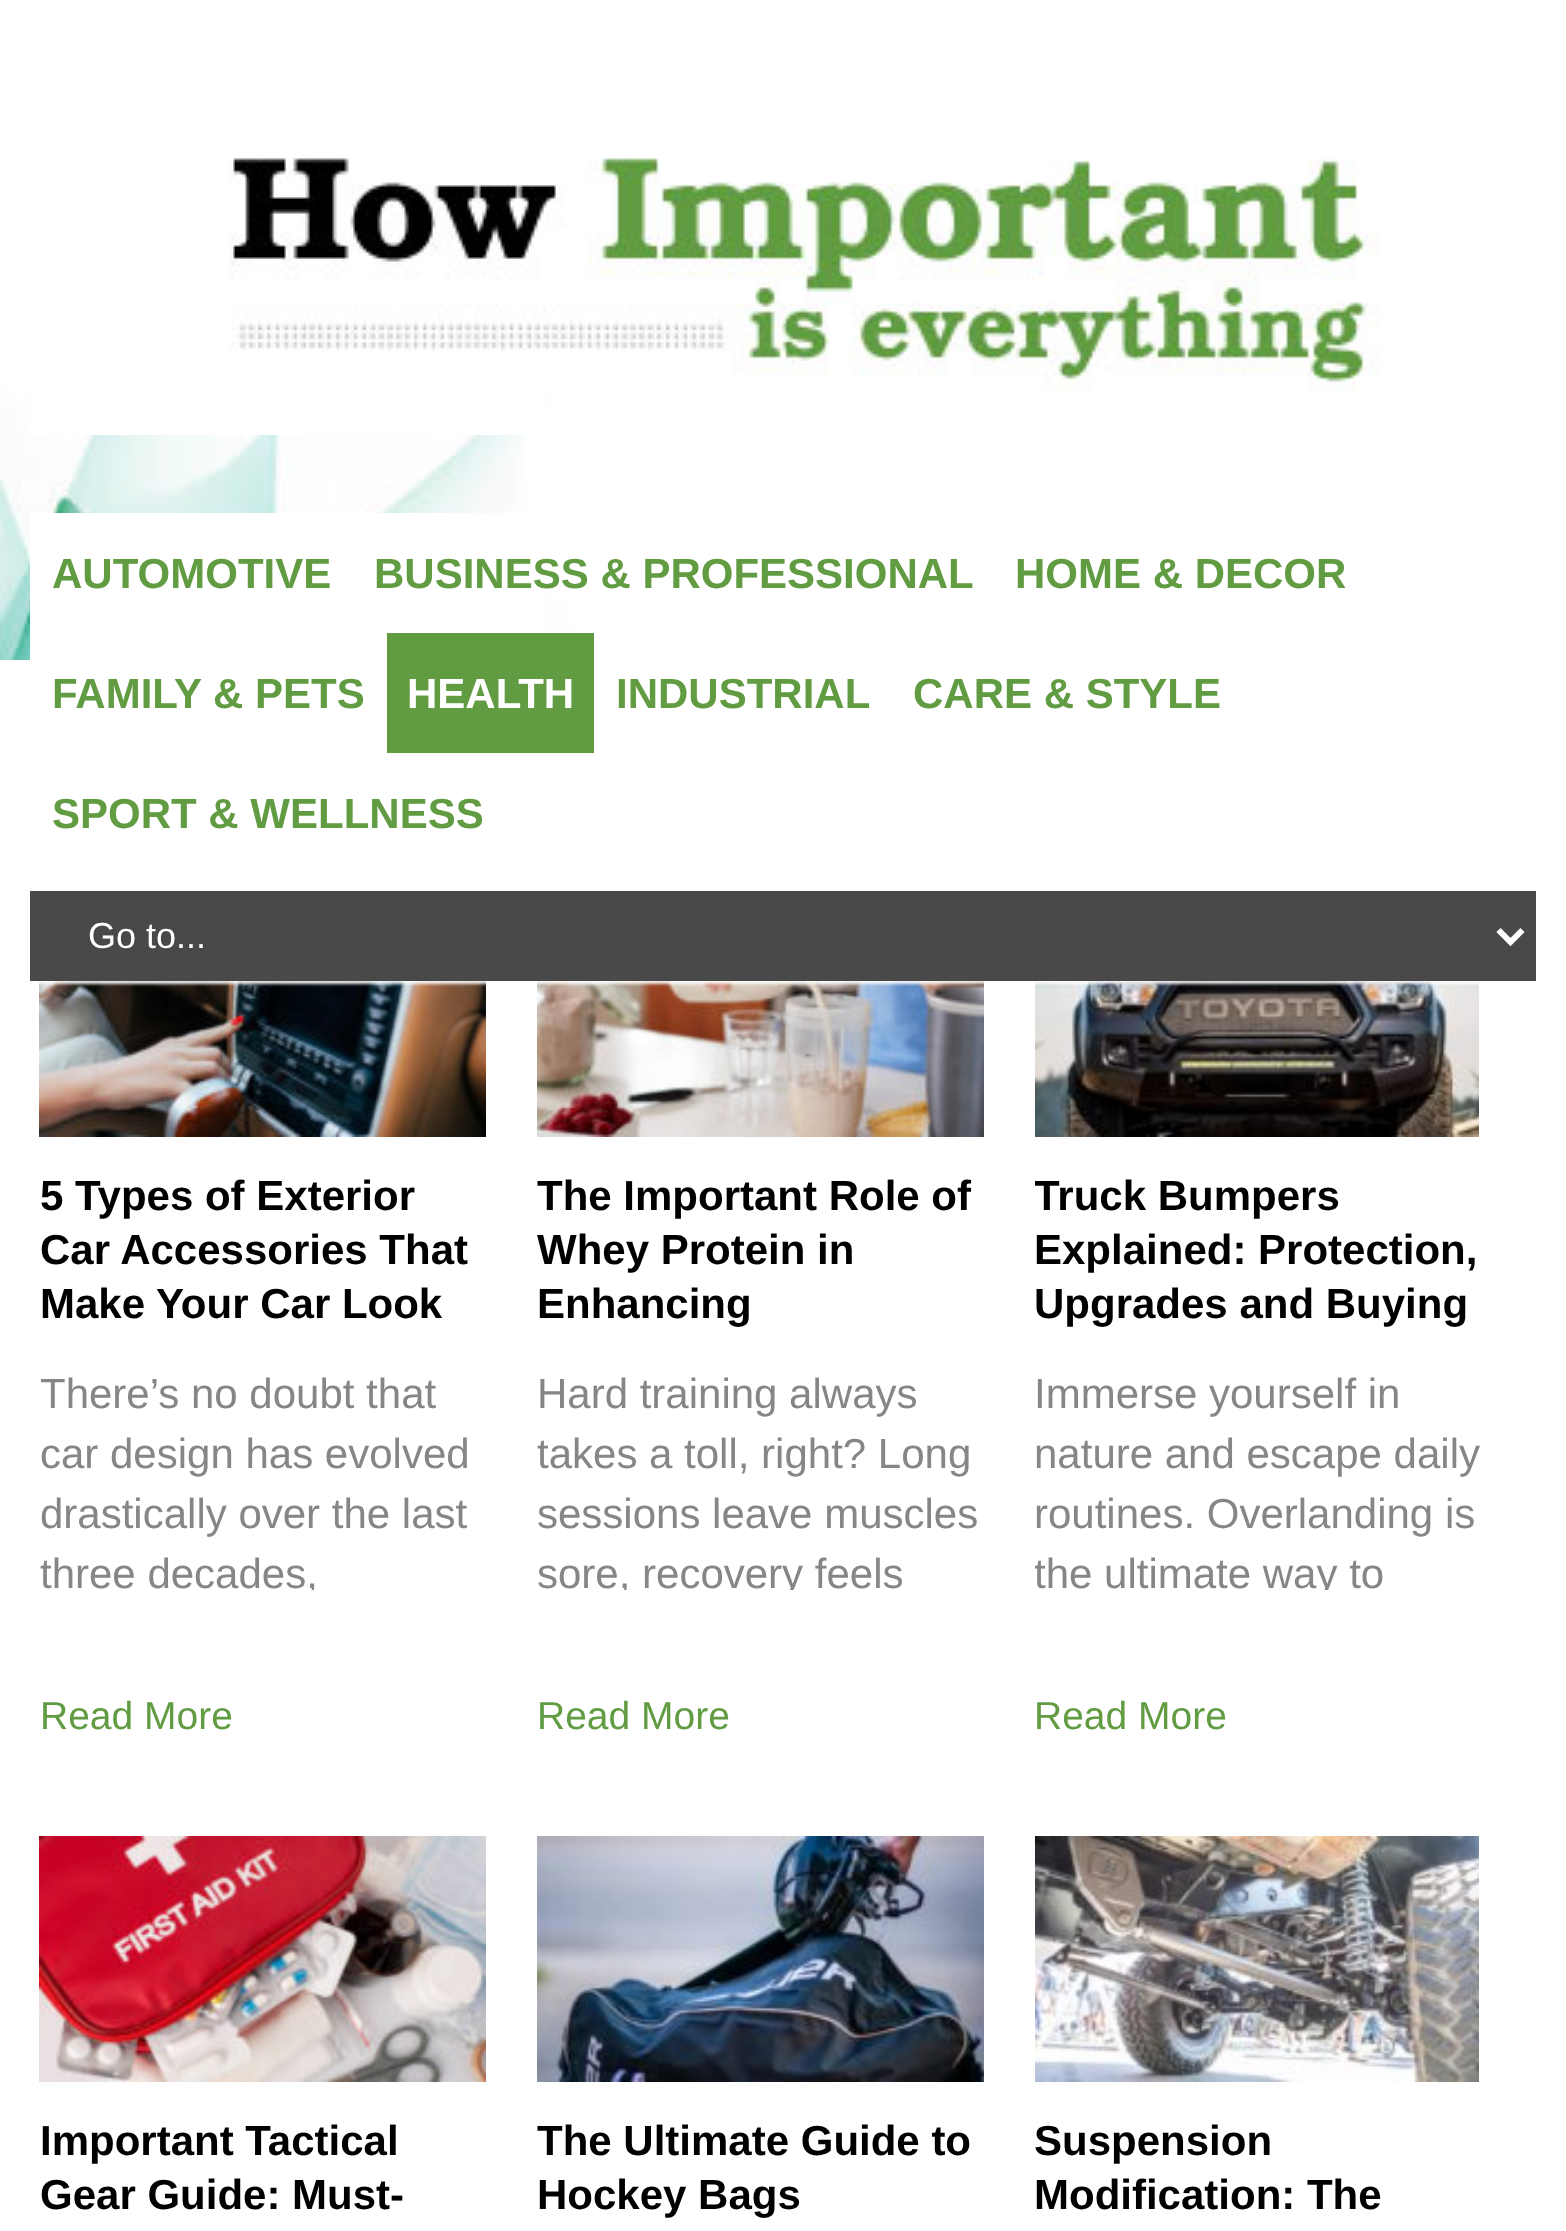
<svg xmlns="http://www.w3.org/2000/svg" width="1566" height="2231">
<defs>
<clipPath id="clip1"><rect x="39" y="1362" width="447" height="228"/></clipPath>
<clipPath id="clip2"><rect x="537" y="1362" width="447" height="228"/></clipPath>
<clipPath id="clip3"><rect x="1035" y="1137" width="444" height="195"/></clipPath>
<clipPath id="clip4"><rect x="1035" y="1362" width="444" height="228"/></clipPath>
</defs>
<rect width="100%" height="100%" fill="#fff"/>
<image x="0" y="299" width="870" height="361" href="media/1.png"/>
<rect x="30" y="299" width="517" height="136" fill="#fff"/>
<image x="228" y="158" width="1152" height="235" href="media/2.png"/>
<rect x="30" y="513" width="514" height="147" fill="#fff"/>
<text x="52" y="588" style="font-family:Liberation Sans;font-size:42px;font-weight:bold;fill:#619c42">AUTOMOTIVE</text>
<text x="374" y="588" style="font-family:Liberation Sans;font-size:42px;font-weight:bold;fill:#619c42">BUSINESS &amp; PROFESSIONAL</text>
<text x="1015" y="588" style="font-family:Liberation Sans;font-size:42px;font-weight:bold;fill:#619c42">HOME &amp; DECOR</text>
<text x="52" y="708" style="font-family:Liberation Sans;font-size:42px;font-weight:bold;fill:#619c42">FAMILY &amp; PETS</text>
<rect x="387" y="633" width="207" height="120" fill="#619c42"/>
<text x="407" y="708" style="font-family:Liberation Sans;font-size:42px;font-weight:bold;fill:#fff">HEALTH</text>
<text x="616" y="708" style="font-family:Liberation Sans;font-size:42px;font-weight:bold;fill:#619c42">INDUSTRIAL</text>
<text x="913" y="708" style="font-family:Liberation Sans;font-size:42px;font-weight:bold;fill:#619c42">CARE &amp; STYLE</text>
<text x="52" y="828" style="font-family:Liberation Sans;font-size:42px;font-weight:bold;fill:#619c42">SPORT &amp; WELLNESS</text>
<image x="39" y="981" width="447" height="156" href="media/3.png"/>
<image x="537" y="981" width="447" height="156" href="media/4.png"/>
<image x="1035" y="981" width="444" height="156" href="media/5.png"/>
<rect x="30" y="894" width="1506" height="90" fill="#ffffffe6" filter="blur(1.5px)"/>
<rect x="30" y="891" width="1506" height="90" fill="#494949"/>
<path d="M1498.5 930l12 12l12-12" fill="none" stroke="#fff" stroke-width="6"/>
<text x="88" y="948" style="font-family:Liberation Sans;font-size:36px;fill:#fff">Go to...</text>
<text x="40" y="1210" style="font-family:Liberation Sans;font-size:42px;font-weight:bold;fill:#000">5 Types of Exterior</text>
<text x="40" y="1264" style="font-family:Liberation Sans;font-size:42px;font-weight:bold;fill:#000">Car Accessories That</text>
<text x="40" y="1318" style="font-family:Liberation Sans;font-size:42px;font-weight:bold;fill:#000">Make Your Car Look</text>
<text x="40" y="1408" style="font-family:Liberation Sans;font-size:42px;fill:#868686">There’s no doubt that</text>
<text x="40" y="1468" style="font-family:Liberation Sans;font-size:42px;fill:#868686">car design has evolved</text>
<text x="40" y="1528" style="font-family:Liberation Sans;font-size:42px;fill:#868686">drastically over the last</text>
<g clip-path="url(#clip1)">
<text x="40" y="1588" style="font-family:Liberation Sans;font-size:42px;fill:#868686">three decades,</text>
</g>
<text x="40" y="1729" style="font-family:Liberation Sans;font-size:39px;fill:#619c42">Read More</text>
<text x="537" y="1210" style="font-family:Liberation Sans;font-size:42px;font-weight:bold;fill:#000">The Important Role of</text>
<text x="537" y="1264" style="font-family:Liberation Sans;font-size:42px;font-weight:bold;fill:#000">Whey Protein in</text>
<text x="537" y="1318" style="font-family:Liberation Sans;font-size:42px;font-weight:bold;fill:#000">Enhancing</text>
<text x="537" y="1408" style="font-family:Liberation Sans;font-size:42px;fill:#868686">Hard training always</text>
<text x="537" y="1468" style="font-family:Liberation Sans;font-size:42px;fill:#868686">takes a toll, right? Long</text>
<text x="537" y="1528" style="font-family:Liberation Sans;font-size:42px;fill:#868686">sessions leave muscles</text>
<g clip-path="url(#clip2)">
<text x="537" y="1588" style="font-family:Liberation Sans;font-size:42px;fill:#868686">sore, recovery feels</text>
</g>
<text x="537" y="1729" style="font-family:Liberation Sans;font-size:39px;fill:#619c42">Read More</text>
<g clip-path="url(#clip3)">
<text x="1034" y="1210" style="font-family:Liberation Sans;font-size:42px;font-weight:bold;fill:#000">Truck Bumpers</text>
</g>
<text x="1034" y="1264" style="font-family:Liberation Sans;font-size:42px;font-weight:bold;fill:#000">Explained: Protection,</text>
<text x="1034" y="1318" style="font-family:Liberation Sans;font-size:42px;font-weight:bold;fill:#000">Upgrades and Buying</text>
<text x="1034" y="1408" style="font-family:Liberation Sans;font-size:42px;fill:#868686">Immerse yourself in</text>
<text x="1034" y="1468" style="font-family:Liberation Sans;font-size:42px;fill:#868686">nature and escape daily</text>
<text x="1034" y="1528" style="font-family:Liberation Sans;font-size:42px;fill:#868686">routines. Overlanding is</text>
<g clip-path="url(#clip4)">
<text x="1034" y="1588" style="font-family:Liberation Sans;font-size:42px;fill:#868686">the ultimate way to</text>
</g>
<text x="1034" y="1729" style="font-family:Liberation Sans;font-size:39px;fill:#619c42">Read More</text>
<image x="39" y="1836" width="447" height="246" href="media/6.png"/>
<text x="40" y="2155" style="font-family:Liberation Sans;font-size:42px;font-weight:bold;fill:#000">Important Tactical</text>
<text x="40" y="2209" style="font-family:Liberation Sans;font-size:42px;font-weight:bold;fill:#000">Gear Guide: Must-</text>
<image x="537" y="1836" width="447" height="246" href="media/7.png"/>
<text x="537" y="2155" style="font-family:Liberation Sans;font-size:42px;font-weight:bold;fill:#000">The Ultimate Guide to</text>
<text x="537" y="2209" style="font-family:Liberation Sans;font-size:42px;font-weight:bold;fill:#000">Hockey Bags</text>
<image x="1035" y="1836" width="444" height="246" href="media/8.png"/>
<text x="1034" y="2155" style="font-family:Liberation Sans;font-size:42px;font-weight:bold;fill:#000">Suspension</text>
<text x="1034" y="2209" style="font-family:Liberation Sans;font-size:42px;font-weight:bold;fill:#000">Modification: The</text>
</svg>
